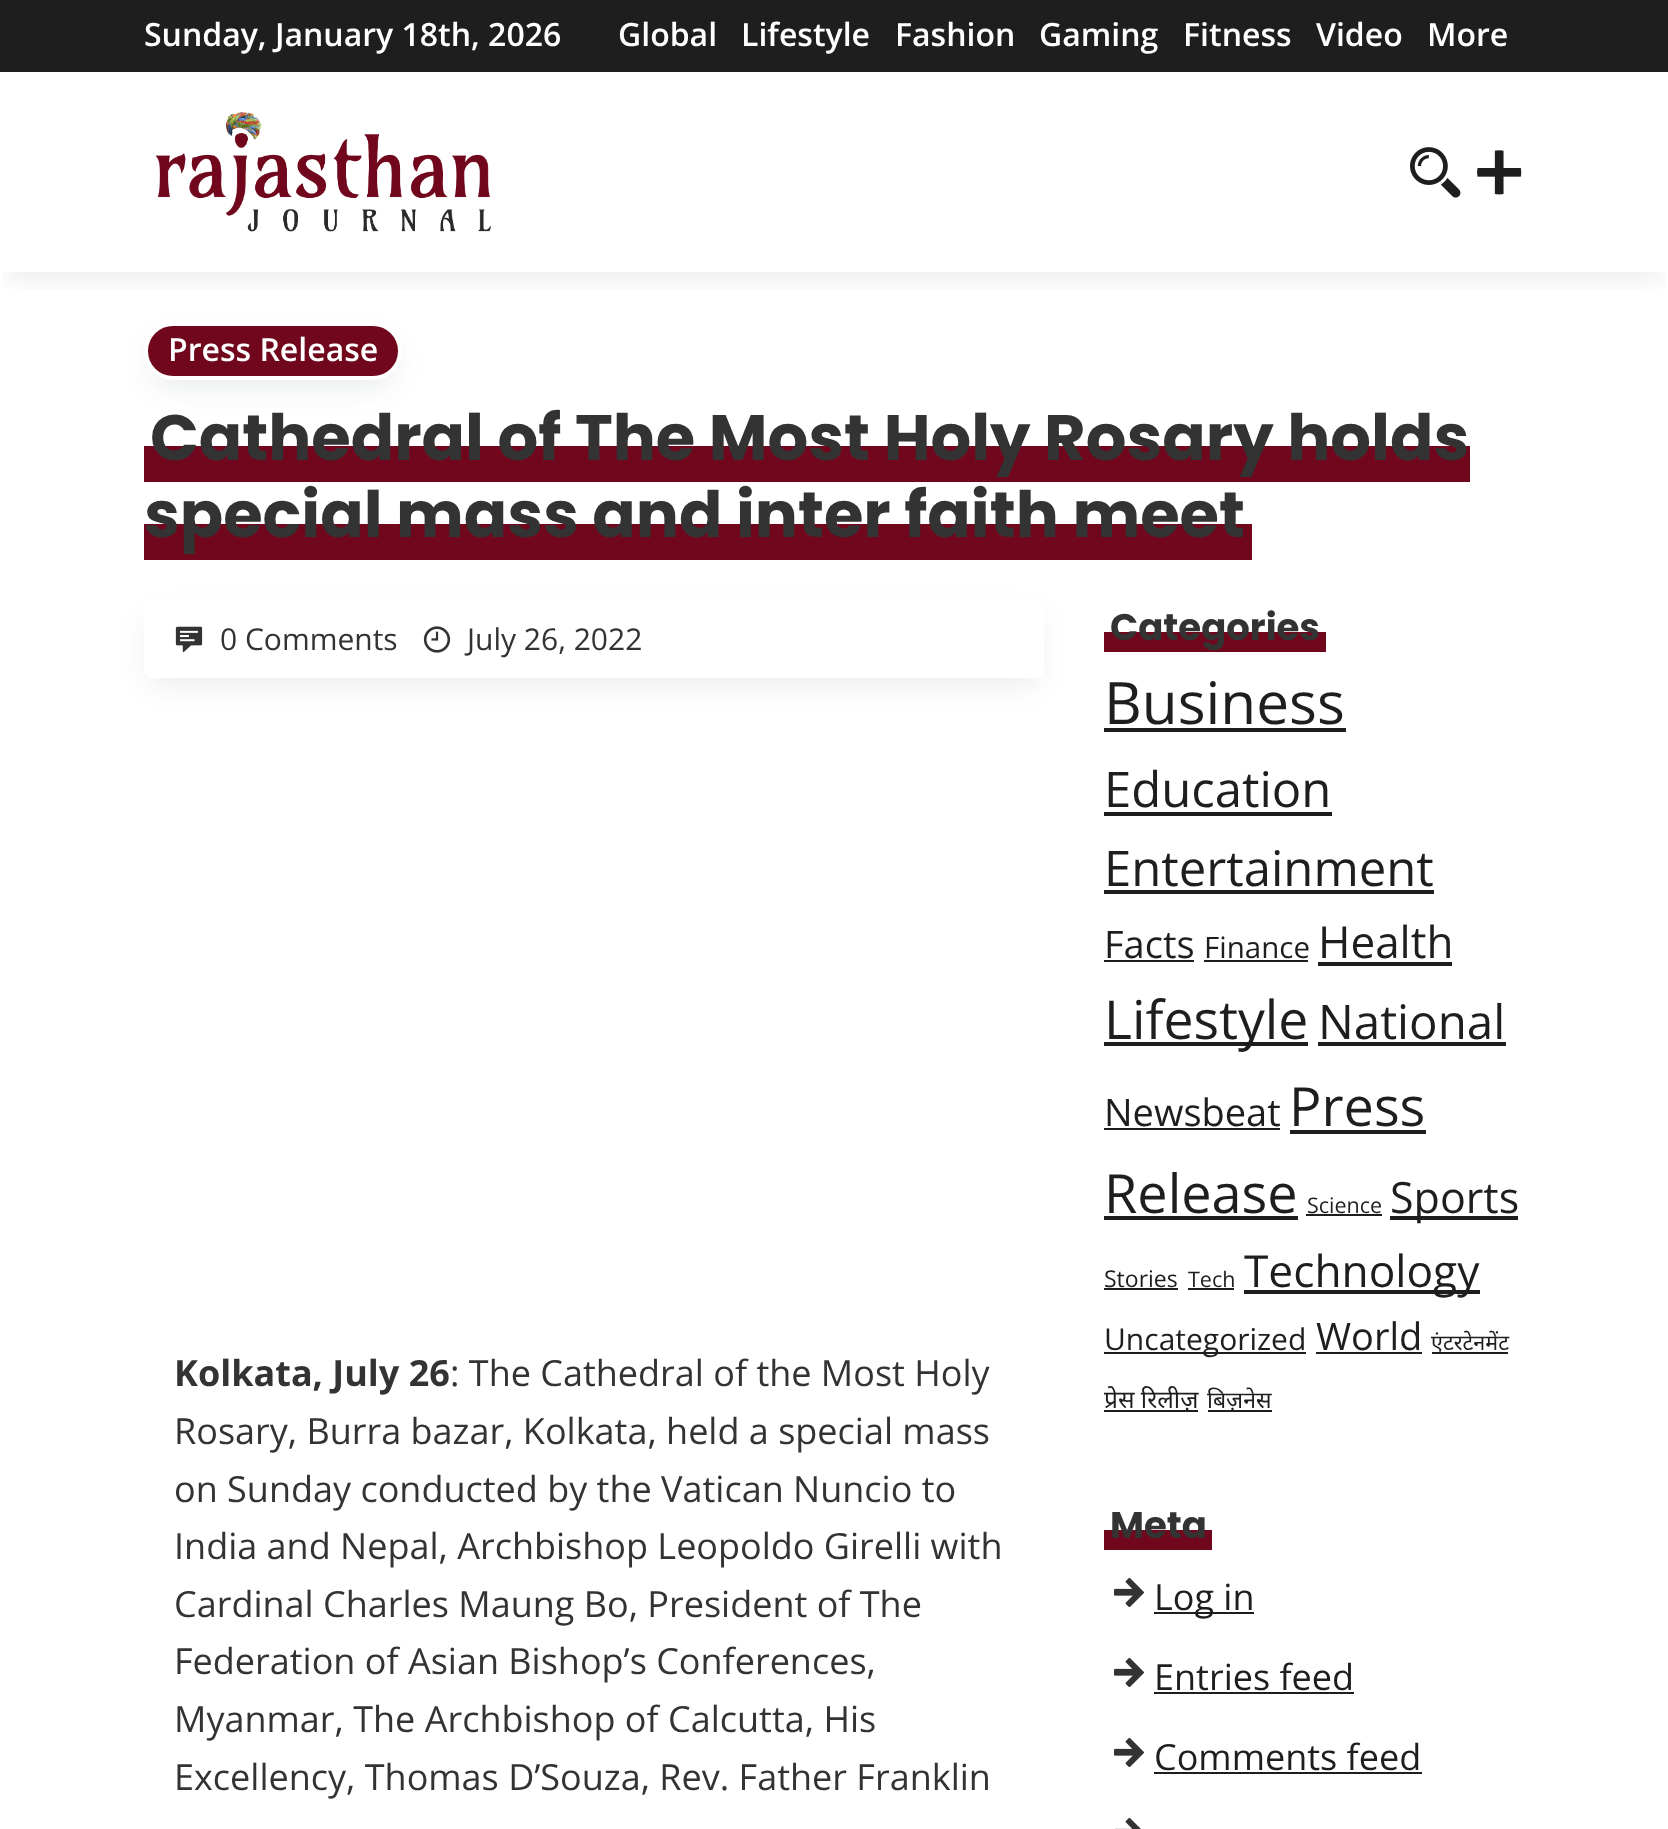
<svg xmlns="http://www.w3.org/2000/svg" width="1668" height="1829">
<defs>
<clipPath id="clip1"><rect x="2" y="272" width="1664" height="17"/></clipPath>
<clipPath id="clip2"><path d="M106 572h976v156h-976zm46 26h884c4.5 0 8 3.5 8 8v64c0 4.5-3.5 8-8 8h-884c-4.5 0-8-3.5-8-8v-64c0-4.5 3.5-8 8-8z" clip-rule="evenodd"/></clipPath>
</defs>
<rect width="100%" height="100%" fill="#fff"/>
<rect width="1668" height="72" fill="#1e1e1e"/>
<text x="144" y="46" style="font-family:Open Sans;font-size:32px;font-weight:600;fill:#fff">Sunday, January 18th, 2026</text>
<text x="618" y="46" style="font-family:Open Sans;font-size:32px;font-weight:600;fill:#fff">Global</text>
<text x="741" y="46" style="font-family:Open Sans;font-size:32px;font-weight:600;fill:#fff">Lifestyle</text>
<text x="895" y="46" style="font-family:Open Sans;font-size:32px;font-weight:600;fill:#fff">Fashion</text>
<text x="1039" y="46" style="font-family:Open Sans;font-size:32px;font-weight:600;fill:#fff">Gaming</text>
<text x="1183" y="46" style="font-family:Open Sans;font-size:32px;font-weight:600;fill:#fff">Fitness</text>
<text x="1316" y="46" style="font-family:Open Sans;font-size:32px;font-weight:600;fill:#fff">Video</text>
<text x="1427" y="46" style="font-family:Open Sans;font-size:32px;font-weight:600;fill:#fff">More</text>
<g clip-path="url(#clip1)">
<rect x="8" y="92" width="1652" height="184" fill="#0e11141a" filter="blur(15px)"/>
</g>
<image x="155" y="112" width="336" height="120" href="media/1.png"/>
<image x="1410" y="147" width="51" height="51" href="media/2.png"/>
<image x="1477" y="150" width="45" height="45" href="media/3.png"/>
<rect x="152" y="342" width="242" height="42" rx="21" fill="#0e11141a" filter="blur(15px)"/>
<rect x="146" y="324" width="254" height="54" rx="27" fill="#71071d" stroke="#fff" stroke-width="4"/>
<text x="168" y="361" style="font-family:Open Sans;font-size:32px;font-weight:600;fill:#fff">Press Release</text>
<rect x="144" y="446" width="1326" height="36" fill="#71071d"/>
<text x="150" y="460" style="font-family:Poppins;font-size:64px;font-weight:bold;fill:#333">Cathedral of The Most Holy Rosary holds</text>
<rect x="144" y="524" width="1108" height="36" fill="#71071d"/>
<text x="144" y="537" style="font-family:Poppins;font-size:64px;font-weight:bold;fill:#333">special mass and inter faith meet</text>
<g clip-path="url(#clip2)">
<rect x="152" y="618" width="884" height="64" fill="#0e11141a" filter="blur(15px)"/>
</g>
<image x="175" y="626" width="28" height="27" href="media/4.png"/>
<text x="220" y="650" style="font-family:Open Sans;font-size:30px;fill:#333">0 Comments</text>
<image x="423" y="626" width="28" height="27" href="media/5.png"/>
<text x="467" y="650" style="font-family:Open Sans;font-size:30px;fill:#333">July 26, 2022</text>
<text x="174" y="1386" style="font-family:Open Sans;font-size:36px;font-weight:bold;fill:#333">Kolkata, July 26</text>
<text x="450" y="1386" style="font-family:Open Sans;font-size:36px;fill:#333">: The Cathedral of the Most Holy</text>
<text x="174" y="1444" style="font-family:Open Sans;font-size:36px;fill:#333">Rosary, Burra bazar, Kolkata, held a special mass</text>
<text x="174" y="1502" style="font-family:Open Sans;font-size:36px;fill:#333">on Sunday conducted by the Vatican Nuncio to</text>
<text x="174" y="1559" style="font-family:Open Sans;font-size:36px;fill:#333">India and Nepal, Archbishop Leopoldo Girelli with</text>
<text x="174" y="1617" style="font-family:Open Sans;font-size:36px;fill:#333">Cardinal Charles Maung Bo, President of The</text>
<text x="174" y="1674" style="font-family:Open Sans;font-size:36px;fill:#333">Federation of Asian Bishop’s Conferences,</text>
<text x="174" y="1732" style="font-family:Open Sans;font-size:36px;fill:#333">Myanmar, The Archbishop of Calcutta, His</text>
<text x="174" y="1790" style="font-family:Open Sans;font-size:36px;fill:#333">Excellency, Thomas D’Souza, Rev. Father Franklin</text>
<rect x="1104" y="632" width="222" height="20" fill="#71071d"/>
<text x="1110" y="640" style="font-family:Poppins;font-size:37px;font-weight:bold;fill:#333">Categories</text>
<text x="1104" y="724" style="font-family:Open Sans;font-size:58.5px;fill:#1e1e1e">Business</text>
<rect x="1104" y="728" width="242" height="4" fill="#1e1e1e"/>
<text x="1104" y="807" style="font-family:Open Sans;font-size:49px;fill:#1e1e1e">Education</text>
<rect x="1104" y="812" width="228" height="4" fill="#1e1e1e"/>
<text x="1104" y="886" style="font-family:Open Sans;font-size:49px;fill:#1e1e1e">Entertainment</text>
<rect x="1104" y="890" width="330" height="4" fill="#1e1e1e"/>
<text x="1104" y="958" style="font-family:Open Sans;font-size:38px;fill:#1e1e1e">Facts</text>
<rect x="1104" y="960" width="90" height="2" fill="#1e1e1e"/>
<text x="1204" y="958" style="font-family:Open Sans;font-size:29.5px;fill:#1e1e1e">Finance</text>
<rect x="1204" y="960" width="104" height="2" fill="#1e1e1e"/>
<text x="1318" y="958" style="font-family:Open Sans;font-size:44px;fill:#1e1e1e">Health</text>
<rect x="1318" y="962" width="134" height="4" fill="#1e1e1e"/>
<rect x="1104" y="1042" width="204" height="4" fill="#1e1e1e"/>
<text x="1104" y="1039" style="font-family:Open Sans;font-size:53.5px;fill:#1e1e1e">Lifestyle</text>
<text x="1318" y="1039" style="font-family:Open Sans;font-size:47.5px;fill:#1e1e1e">National</text>
<rect x="1318" y="1042" width="188" height="4" fill="#1e1e1e"/>
<text x="1104" y="1126" style="font-family:Open Sans;font-size:38px;fill:#1e1e1e">Newsbeat</text>
<rect x="1104" y="1128" width="176" height="2" fill="#1e1e1e"/>
<text x="1289" y="1126" style="font-family:Open Sans;font-size:54px;fill:#1e1e1e">Press</text>
<rect x="1290" y="1130" width="136" height="4" fill="#1e1e1e"/>
<text x="1104" y="1213" style="font-family:Open Sans;font-size:54px;fill:#1e1e1e">Release</text>
<rect x="1104" y="1216" width="194" height="4" fill="#1e1e1e"/>
<text x="1307" y="1213" style="font-family:Open Sans;font-size:21.5px;fill:#1e1e1e">Science</text>
<rect x="1306" y="1214" width="76" height="2" fill="#1e1e1e"/>
<rect x="1390" y="1216" width="128" height="4" fill="#1e1e1e"/>
<text x="1390" y="1213" style="font-family:Open Sans;font-size:43px;fill:#1e1e1e">Sports</text>
<text x="1104" y="1287" style="font-family:Open Sans;font-size:23px;fill:#1e1e1e">Stories</text>
<rect x="1104" y="1288" width="74" height="2" fill="#1e1e1e"/>
<text x="1188" y="1287" style="font-family:Open Sans;font-size:21.5px;fill:#1e1e1e">Tech</text>
<rect x="1188" y="1288" width="46" height="2" fill="#1e1e1e"/>
<rect x="1244" y="1290" width="236" height="4" fill="#1e1e1e"/>
<text x="1244" y="1287" style="font-family:Open Sans;font-size:44.25px;fill:#1e1e1e">Technology</text>
<rect x="1104" y="1352" width="202" height="2" fill="#1e1e1e"/>
<text x="1104" y="1350" style="font-family:Open Sans;font-size:30px;fill:#1e1e1e">Uncategorized</text>
<text x="1316" y="1350" style="font-family:Open Sans;font-size:38px;fill:#1e1e1e">World</text>
<rect x="1316" y="1352" width="106" height="2" fill="#1e1e1e"/>
<text x="1431" y="1350" style="font-family:Noto Sans;font-size:21.5px;fill:#1e1e1e">एंटरटेनमेंट</text>
<rect x="1432" y="1352" width="76" height="2" fill="#1e1e1e"/>
<rect x="1104" y="1410" width="94" height="2" fill="#1e1e1e"/>
<text x="1104" y="1408" style="font-family:Noto Sans;font-size:24.5px;fill:#1e1e1e">प्रेस रिलीज़</text>
<rect x="1208" y="1410" width="64" height="2" fill="#1e1e1e"/>
<text x="1207" y="1408" style="font-family:Noto Sans;font-size:23px;fill:#1e1e1e">बिज़नेस</text>
<rect x="1104" y="1530" width="108" height="20" fill="#71071d"/>
<text x="1110" y="1538" style="font-family:Poppins;font-size:37px;font-weight:bold;fill:#333">Meta</text>
<image x="1114" y="1577" width="30" height="31" href="media/6.png"/>
<rect x="1154" y="1612" width="100" height="2" fill="#1e1e1e"/>
<text x="1154" y="1610" style="font-family:Open Sans;font-size:36px;fill:#1e1e1e">Log in</text>
<image x="1114" y="1657" width="30" height="31" href="media/6.png"/>
<text x="1154" y="1690" style="font-family:Open Sans;font-size:36px;fill:#1e1e1e">Entries feed</text>
<rect x="1154" y="1692" width="200" height="2" fill="#1e1e1e"/>
<image x="1114" y="1737" width="30" height="31" href="media/6.png"/>
<text x="1154" y="1770" style="font-family:Open Sans;font-size:36px;fill:#1e1e1e">Comments feed</text>
<rect x="1154" y="1772" width="268" height="2" fill="#1e1e1e"/>
<image x="1115" y="1817" width="26" height="12" href="media/7.png"/>
</svg>
